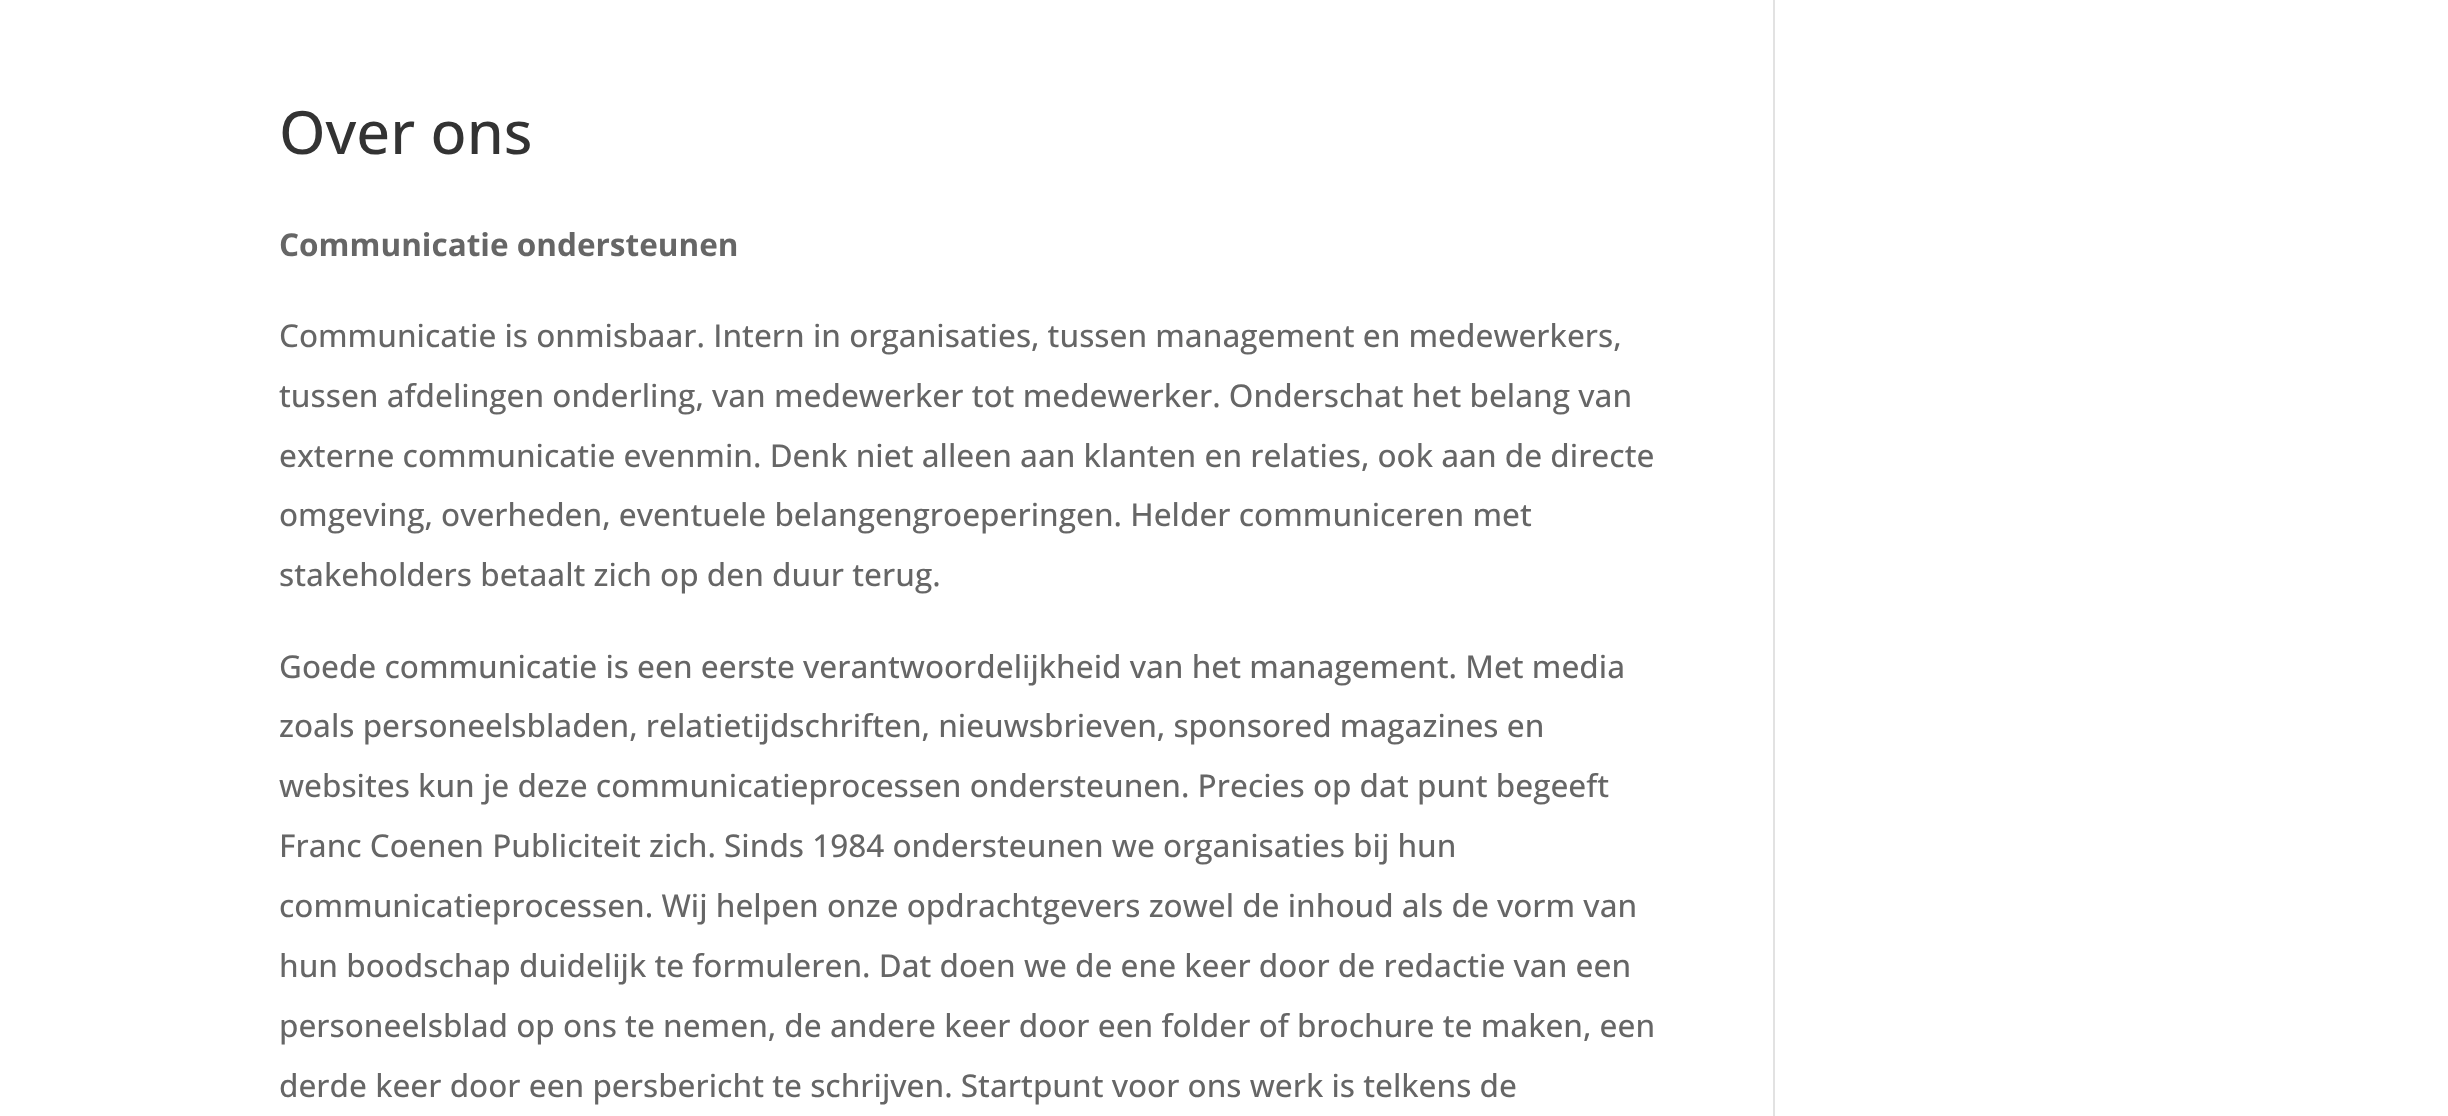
<svg xmlns="http://www.w3.org/2000/svg" width="2448" height="1116">
<rect width="100%" height="100%" fill="#fff"/>
<text x="279" y="154" style="font-family:Open Sans;font-size:59.5px;font-weight:500;fill:#333">Over ons</text>
<text x="279" y="256" style="font-family:Open Sans;font-size:31.5px;font-weight:bold;fill:#666">Communicatie ondersteunen</text>
<text x="279" y="347" style="font-family:Open Sans;font-size:31.5px;font-weight:500;fill:#666">Communicatie is onmisbaar. Intern in organisaties, tussen management en medewerkers,</text>
<text x="279" y="407" style="font-family:Open Sans;font-size:31.5px;font-weight:500;fill:#666">tussen afdelingen onderling, van medewerker tot medewerker. Onderschat het belang van</text>
<text x="279" y="467" style="font-family:Open Sans;font-size:31.5px;font-weight:500;fill:#666">externe communicatie evenmin. Denk niet alleen aan klanten en relaties, ook aan de directe</text>
<text x="279" y="526" style="font-family:Open Sans;font-size:31.5px;font-weight:500;fill:#666">omgeving, overheden, eventuele belangengroeperingen. Helder communiceren met</text>
<text x="279" y="586" style="font-family:Open Sans;font-size:31.5px;font-weight:500;fill:#666">stakeholders betaalt zich op den duur terug.</text>
<text x="279" y="678" style="font-family:Open Sans;font-size:31.5px;font-weight:500;fill:#666">Goede communicatie is een eerste verantwoordelijkheid van het management. Met media</text>
<text x="279" y="737" style="font-family:Open Sans;font-size:31.5px;font-weight:500;fill:#666">zoals personeelsbladen, relatietijdschriften, nieuwsbrieven, sponsored magazines en</text>
<text x="279" y="797" style="font-family:Open Sans;font-size:31.5px;font-weight:500;fill:#666">websites kun je deze communicatieprocessen ondersteunen. Precies op dat punt begeeft</text>
<text x="279" y="857" style="font-family:Open Sans;font-size:31.5px;font-weight:500;fill:#666">Franc Coenen Publiciteit zich. Sinds 1984 ondersteunen we organisaties bij hun</text>
<text x="279" y="917" style="font-family:Open Sans;font-size:31.5px;font-weight:500;fill:#666">communicatieprocessen. Wij helpen onze opdrachtgevers zowel de inhoud als de vorm van</text>
<text x="279" y="977" style="font-family:Open Sans;font-size:31.5px;font-weight:500;fill:#666">hun boodschap duidelijk te formuleren. Dat doen we de ene keer door de redactie van een</text>
<text x="279" y="1037" style="font-family:Open Sans;font-size:31.5px;font-weight:500;fill:#666">personeelsblad op ons te nemen, de andere keer door een folder of brochure te maken, een</text>
<text x="279" y="1097" style="font-family:Open Sans;font-size:31.5px;font-weight:500;fill:#666">derde keer door een persbericht te schrijven. Startpunt voor ons werk is telkens de</text>
<rect x="1773" width="2" height="1116" fill="#e2e2e2"/>
</svg>
